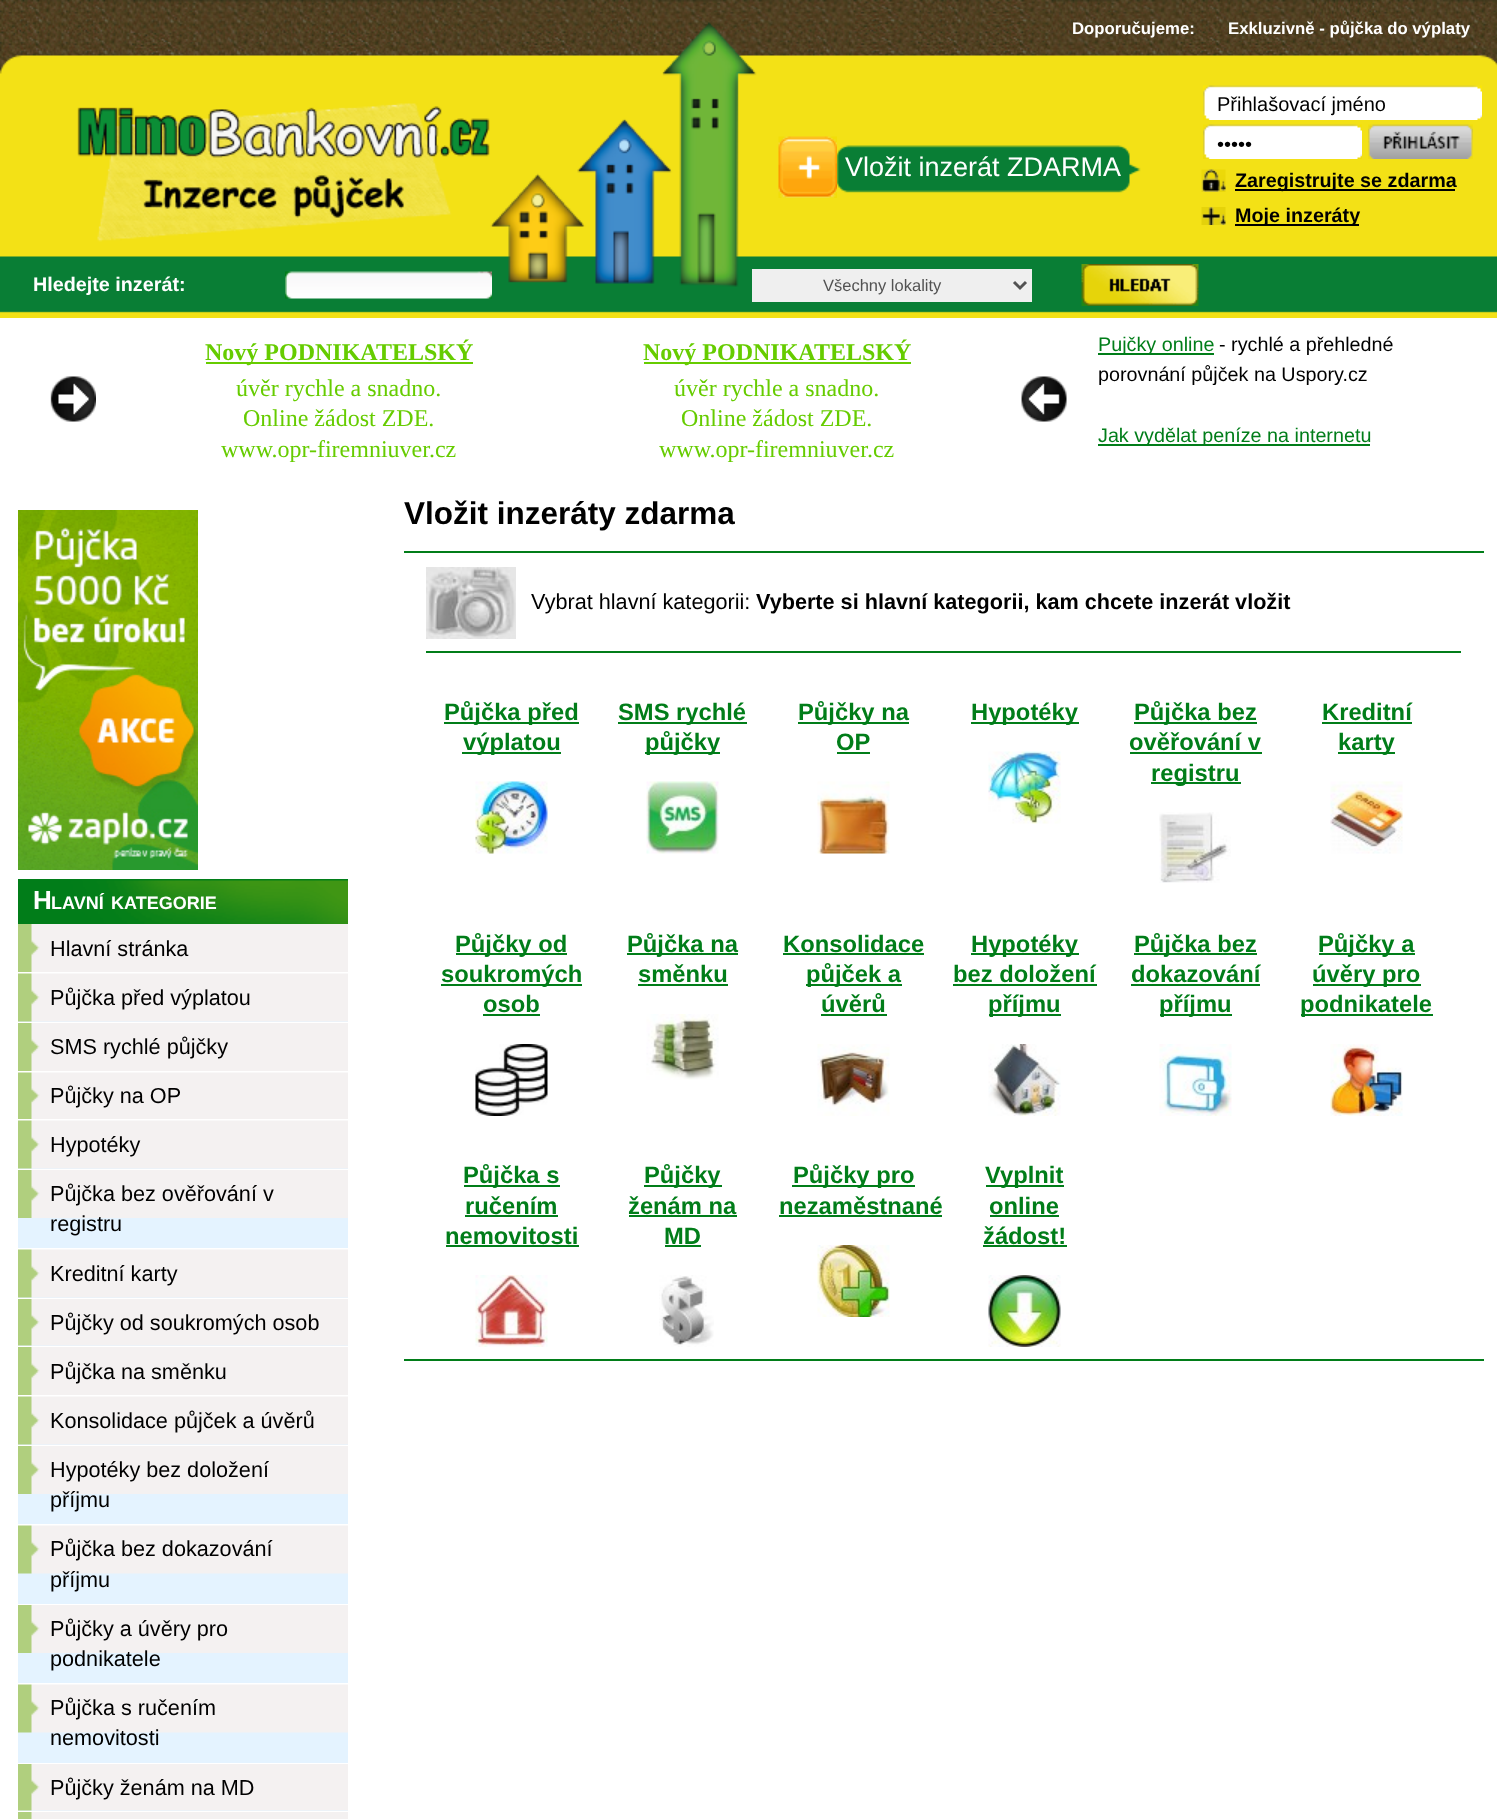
<svg xmlns="http://www.w3.org/2000/svg" width="1497" height="1819">
<rect width="100%" height="100%" fill="#fff"/>
<image x="0" y="0" width="1497" height="318" href="media/1.png"/>
<text x="1072" y="34" style="font-family:Liberation Sans;font-size:16.75px;font-weight:bold;fill:#fff">Doporučujeme:</text>
<text x="1228" y="34" style="font-family:Liberation Sans;font-size:16.75px;font-weight:bold;fill:#fff">Exkluzivně - půjčka do výplaty</text>
<image x="778" y="136" width="59" height="62" href="media/2.png"/>
<text x="845" y="176" style="font-family:Liberation Sans;font-size:27px;fill:#fff">Vložit inzerát ZDARMA</text>
<image x="1203" y="85" width="279" height="35" href="media/3.png"/>
<text x="1217" y="111" style="font-family:Liberation Sans;font-size:20px;fill:#000">Přihlašovací jméno</text>
<image x="1203" y="124" width="159" height="35" href="media/4.png"/>
<text x="1217" y="151" style="font-family:Liberation Sans;font-size:20px;fill:#000">•••••</text>
<image x="1368" y="124" width="105" height="35" href="media/5.png"/>
<image x="1201" y="169" width="25" height="23" href="media/6.png"/>
<rect x="1235" y="189" width="220" height="2" fill="#000"/>
<text x="1235" y="187" style="font-family:Liberation Sans;font-size:19.75px;font-weight:bold;fill:#000">Zaregistrujte se zdarma</text>
<image x="1201" y="207" width="25" height="18" href="media/7.png"/>
<rect x="1235" y="224" width="124" height="2" fill="#000"/>
<text x="1235" y="222" style="font-family:Liberation Sans;font-size:19.75px;font-weight:bold;fill:#000">Moje inzeráty</text>
<text x="33" y="291" style="font-family:Liberation Sans;font-size:19.75px;font-weight:bold;fill:#fff">Hledejte inzerát:</text>
<image x="285" y="271" width="207" height="28" href="media/8.png"/>
<rect x="752" y="269" width="280" height="33" fill="#efefef"/>
<path d="M1014 282l6 6l6-6" fill="none" stroke="#525252" stroke-width="3"/>
<text x="823" y="291" style="font-family:Liberation Sans;font-size:16.5px;fill:#525252">Všechny lokality</text>
<image x="1081" y="264" width="118" height="42" href="media/9.png"/>
<image x="50" y="376" width="46" height="46" href="media/10.png"/>
<rect x="206" y="362" width="267" height="2" fill="#6c0"/>
<text x="205" y="360" style="font-family:Liberation Serif;font-size:24px;font-weight:bold;fill:#6c0">Nový PODNIKATELSKÝ</text>
<text x="236" y="396" style="font-family:Liberation Serif;font-size:24px;fill:#6c0">úvěr rychle a snadno.</text>
<text x="243" y="426" style="font-family:Liberation Serif;font-size:24px;fill:#6c0">Online žádost ZDE.</text>
<text x="221" y="457" style="font-family:Liberation Serif;font-size:24px;fill:#6c0">www.opr-firemniuver.cz</text>
<rect x="644" y="362" width="267" height="2" fill="#6c0"/>
<text x="643" y="360" style="font-family:Liberation Serif;font-size:24px;font-weight:bold;fill:#6c0">Nový PODNIKATELSKÝ</text>
<text x="674" y="396" style="font-family:Liberation Serif;font-size:24px;fill:#6c0">úvěr rychle a snadno.</text>
<text x="681" y="426" style="font-family:Liberation Serif;font-size:24px;fill:#6c0">Online žádost ZDE.</text>
<text x="659" y="457" style="font-family:Liberation Serif;font-size:24px;fill:#6c0">www.opr-firemniuver.cz</text>
<image x="1021" y="376" width="46" height="46" href="media/11.png"/>
<rect x="1098" y="353" width="116" height="2" fill="#017d19"/>
<text x="1098" y="351" style="font-family:Liberation Sans;font-size:19.75px;fill:#017d19">Pujčky online</text>
<text x="1219" y="351" style="font-family:Liberation Sans;font-size:19.75px;fill:#000">- rychlé a přehledné</text>
<text x="1098" y="381" style="font-family:Liberation Sans;font-size:19.75px;fill:#000">porovnání půjček na Uspory.cz</text>
<rect x="1098" y="444" width="272" height="2" fill="#017d19"/>
<text x="1098" y="442" style="font-family:Liberation Sans;font-size:19.75px;fill:#017d19">Jak vydělat peníze na internetu</text>
<image x="18" y="510" width="180" height="360" href="media/12.png"/>
<image x="18" y="879" width="330" height="45" href="media/13.png"/>
<text x="33" y="909" style="font-family:Liberation Sans;font-size:26px;font-weight:bold;fill:#fff">H</text>
<text x="51" y="909" style="font-family:Liberation Sans;font-size:18px;font-weight:bold;fill:#fff">LAVNÍ</text>
<text x="111" y="909" style="font-family:Liberation Sans;font-size:18px;font-weight:bold;fill:#fff">KATEGORIE</text>
<image x="18" y="924" width="330" height="48" href="media/14.png"/>
<text x="50" y="956" style="font-family:Liberation Sans;font-size:21.65px;fill:#000">Hlavní stránka</text>
<rect x="18" y="1021" width="330" height="1" fill="#e4f3ff"/>
<image x="18" y="973" width="330" height="49" href="media/15.png"/>
<text x="50" y="1005" style="font-family:Liberation Sans;font-size:21.65px;fill:#000">Půjčka před výplatou</text>
<image x="18" y="1023" width="330" height="48" href="media/14.png"/>
<text x="50" y="1054" style="font-family:Liberation Sans;font-size:21.65px;fill:#000">SMS rychlé půjčky</text>
<image x="18" y="1072" width="330" height="47" href="media/16.png"/>
<text x="50" y="1103" style="font-family:Liberation Sans;font-size:21.65px;fill:#000">Půjčky na OP</text>
<rect x="18" y="1168" width="330" height="1" fill="#e4f3ff"/>
<image x="18" y="1120" width="330" height="49" href="media/15.png"/>
<text x="50" y="1152" style="font-family:Liberation Sans;font-size:21.65px;fill:#000">Hypotéky</text>
<rect x="18" y="1218" width="330" height="30" fill="#e4f3ff"/>
<image x="18" y="1170" width="330" height="48" href="media/17.png"/>
<text x="50" y="1201" style="font-family:Liberation Sans;font-size:21.65px;fill:#000">Půjčka bez ověřování v</text>
<text x="50" y="1231" style="font-family:Liberation Sans;font-size:21.65px;fill:#000">registru</text>
<rect x="18" y="1297" width="330" height="1" fill="#e4f3ff"/>
<image x="18" y="1249" width="330" height="49" href="media/15.png"/>
<text x="50" y="1281" style="font-family:Liberation Sans;font-size:21.65px;fill:#000">Kreditní karty</text>
<rect x="18" y="1345" width="330" height="1" fill="#e4f3ff"/>
<image x="18" y="1299" width="330" height="47" href="media/18.png"/>
<text x="50" y="1330" style="font-family:Liberation Sans;font-size:21.65px;fill:#000">Půjčky od soukromých osob</text>
<image x="18" y="1347" width="330" height="48" href="media/14.png"/>
<text x="50" y="1379" style="font-family:Liberation Sans;font-size:21.65px;fill:#000">Půjčka na směnku</text>
<rect x="18" y="1444" width="330" height="1" fill="#e4f3ff"/>
<image x="18" y="1396" width="330" height="49" href="media/15.png"/>
<text x="50" y="1428" style="font-family:Liberation Sans;font-size:21.65px;fill:#000">Konsolidace půjček a úvěrů</text>
<rect x="18" y="1494" width="330" height="30" fill="#e4f3ff"/>
<image x="18" y="1446" width="330" height="48" href="media/17.png"/>
<text x="50" y="1477" style="font-family:Liberation Sans;font-size:21.65px;fill:#000">Hypotéky bez doložení</text>
<text x="50" y="1507" style="font-family:Liberation Sans;font-size:21.65px;fill:#000">příjmu</text>
<rect x="18" y="1573" width="330" height="31" fill="#e4f3ff"/>
<image x="18" y="1525" width="330" height="49" href="media/19.png"/>
<text x="50" y="1556" style="font-family:Liberation Sans;font-size:21.65px;fill:#000">Půjčka bez dokazování</text>
<text x="50" y="1587" style="font-family:Liberation Sans;font-size:21.65px;fill:#000">příjmu</text>
<rect x="18" y="1653" width="330" height="30" fill="#e4f3ff"/>
<image x="18" y="1605" width="330" height="48" href="media/17.png"/>
<text x="50" y="1636" style="font-family:Liberation Sans;font-size:21.65px;fill:#000">Půjčky a úvěry pro</text>
<text x="50" y="1666" style="font-family:Liberation Sans;font-size:21.65px;fill:#000">podnikatele</text>
<rect x="18" y="1732" width="330" height="31" fill="#e4f3ff"/>
<image x="18" y="1684" width="330" height="49" href="media/19.png"/>
<text x="50" y="1715" style="font-family:Liberation Sans;font-size:21.65px;fill:#000">Půjčka s ručením</text>
<text x="50" y="1745" style="font-family:Liberation Sans;font-size:21.65px;fill:#000">nemovitosti</text>
<rect x="18" y="1810" width="330" height="1" fill="#e4f3ff"/>
<image x="18" y="1764" width="330" height="47" href="media/18.png"/>
<text x="50" y="1795" style="font-family:Liberation Sans;font-size:21.65px;fill:#000">Půjčky ženám na MD</text>
<image x="18" y="1812" width="330" height="7" href="media/20.png"/>
<text x="404" y="524" style="font-family:Liberation Sans;font-size:31.5px;font-weight:bold;fill:#000">Vložit inzeráty zdarma</text>
<rect x="404" y="551" width="1080" height="2" fill="#017d19"/>
<rect x="404" y="1359" width="1080" height="2" fill="#017d19"/>
<image x="426" y="567" width="90" height="72" href="media/21.png"/>
<text x="531" y="609" style="font-family:Liberation Sans;font-size:21.65px;fill:#000">Vybrat hlavní kategorii:</text>
<text x="756" y="609" style="font-family:Liberation Sans;font-size:21.65px;font-weight:bold;fill:#000">Vyberte si hlavní kategorii, kam chcete inzerát vložit</text>
<rect x="426" y="651" width="1035" height="2" fill="#017d19"/>
<rect x="444" y="722" width="135" height="2" fill="#017d19"/>
<text x="444" y="720" style="font-family:Liberation Sans;font-size:23.75px;font-weight:bold;fill:#017d19">Půjčka před</text>
<rect x="462" y="752" width="99" height="2" fill="#017d19"/>
<text x="463" y="750" style="font-family:Liberation Sans;font-size:23.75px;font-weight:bold;fill:#017d19">výplatou</text>
<image x="475" y="781" width="73" height="73" href="media/22.png"/>
<rect x="618" y="722" width="129" height="2" fill="#017d19"/>
<text x="618" y="720" style="font-family:Liberation Sans;font-size:23.75px;font-weight:bold;fill:#017d19">SMS rychlé</text>
<rect x="645" y="752" width="75" height="2" fill="#017d19"/>
<text x="645" y="750" style="font-family:Liberation Sans;font-size:23.75px;font-weight:bold;fill:#017d19">půjčky</text>
<image x="646" y="781" width="73" height="73" href="media/23.png"/>
<rect x="798" y="722" width="111" height="2" fill="#017d19"/>
<text x="798" y="720" style="font-family:Liberation Sans;font-size:23.75px;font-weight:bold;fill:#017d19">Půjčky na</text>
<text x="836" y="750" style="font-family:Liberation Sans;font-size:23.75px;font-weight:bold;fill:#017d19">OP</text>
<rect x="837" y="752" width="33" height="2" fill="#017d19"/>
<image x="817" y="781" width="73" height="73" href="media/24.png"/>
<rect x="971" y="722" width="108" height="2" fill="#017d19"/>
<text x="971" y="720" style="font-family:Liberation Sans;font-size:23.75px;font-weight:bold;fill:#017d19">Hypotéky</text>
<image x="988" y="751" width="73" height="73" href="media/25.png"/>
<rect x="1134" y="722" width="123" height="2" fill="#017d19"/>
<text x="1134" y="720" style="font-family:Liberation Sans;font-size:23.75px;font-weight:bold;fill:#017d19">Půjčka bez</text>
<text x="1129" y="750" style="font-family:Liberation Sans;font-size:23.75px;font-weight:bold;fill:#017d19">ověřování v</text>
<rect x="1130" y="752" width="132" height="2" fill="#017d19"/>
<rect x="1151" y="782" width="90" height="2" fill="#017d19"/>
<text x="1151" y="781" style="font-family:Liberation Sans;font-size:23.75px;font-weight:bold;fill:#017d19">registru</text>
<image x="1159" y="812" width="72" height="71" href="media/26.png"/>
<text x="1322" y="720" style="font-family:Liberation Sans;font-size:23.75px;font-weight:bold;fill:#017d19">Kreditní</text>
<rect x="1322" y="722" width="90" height="2" fill="#017d19"/>
<rect x="1338" y="752" width="57" height="2" fill="#017d19"/>
<text x="1338" y="750" style="font-family:Liberation Sans;font-size:23.75px;font-weight:bold;fill:#017d19">karty</text>
<image x="1330" y="781" width="73" height="73" href="media/27.png"/>
<rect x="456" y="953" width="111" height="2" fill="#017d19"/>
<text x="455" y="952" style="font-family:Liberation Sans;font-size:23.75px;font-weight:bold;fill:#017d19">Půjčky od</text>
<rect x="441" y="984" width="141" height="2" fill="#017d19"/>
<text x="441" y="982" style="font-family:Liberation Sans;font-size:23.75px;font-weight:bold;fill:#017d19">soukromých</text>
<text x="483" y="1012" style="font-family:Liberation Sans;font-size:23.75px;font-weight:bold;fill:#017d19">osob</text>
<rect x="483" y="1014" width="57" height="2" fill="#017d19"/>
<image x="475" y="1044" width="73" height="72" href="media/28.png"/>
<rect x="627" y="953" width="111" height="2" fill="#017d19"/>
<text x="627" y="952" style="font-family:Liberation Sans;font-size:23.75px;font-weight:bold;fill:#017d19">Půjčka na</text>
<text x="638" y="982" style="font-family:Liberation Sans;font-size:23.75px;font-weight:bold;fill:#017d19">směnku</text>
<rect x="638" y="984" width="90" height="2" fill="#017d19"/>
<image x="646" y="1014" width="73" height="66" href="media/29.png"/>
<text x="783" y="952" style="font-family:Liberation Sans;font-size:23.75px;font-weight:bold;fill:#017d19">Konsolidace</text>
<rect x="783" y="953" width="141" height="2" fill="#017d19"/>
<rect x="806" y="984" width="96" height="2" fill="#017d19"/>
<text x="806" y="982" style="font-family:Liberation Sans;font-size:23.75px;font-weight:bold;fill:#017d19">půjček a</text>
<text x="821" y="1012" style="font-family:Liberation Sans;font-size:23.75px;font-weight:bold;fill:#017d19">úvěrů</text>
<rect x="821" y="1014" width="66" height="2" fill="#017d19"/>
<image x="817" y="1044" width="73" height="72" href="media/30.png"/>
<rect x="971" y="953" width="108" height="2" fill="#017d19"/>
<text x="971" y="952" style="font-family:Liberation Sans;font-size:23.75px;font-weight:bold;fill:#017d19">Hypotéky</text>
<text x="953" y="982" style="font-family:Liberation Sans;font-size:23.75px;font-weight:bold;fill:#017d19">bez doložení</text>
<rect x="953" y="984" width="144" height="2" fill="#017d19"/>
<rect x="989" y="1014" width="72" height="2" fill="#017d19"/>
<text x="988" y="1012" style="font-family:Liberation Sans;font-size:23.75px;font-weight:bold;fill:#017d19">příjmu</text>
<image x="988" y="1044" width="73" height="72" href="media/31.png"/>
<rect x="1134" y="953" width="123" height="2" fill="#017d19"/>
<text x="1134" y="952" style="font-family:Liberation Sans;font-size:23.75px;font-weight:bold;fill:#017d19">Půjčka bez</text>
<text x="1131" y="982" style="font-family:Liberation Sans;font-size:23.75px;font-weight:bold;fill:#017d19">dokazování</text>
<rect x="1131" y="984" width="129" height="2" fill="#017d19"/>
<rect x="1160" y="1014" width="72" height="2" fill="#017d19"/>
<text x="1159" y="1012" style="font-family:Liberation Sans;font-size:23.75px;font-weight:bold;fill:#017d19">příjmu</text>
<image x="1159" y="1044" width="73" height="72" href="media/32.png"/>
<rect x="1319" y="953" width="96" height="2" fill="#017d19"/>
<text x="1318" y="952" style="font-family:Liberation Sans;font-size:23.75px;font-weight:bold;fill:#017d19">Půjčky a</text>
<rect x="1313" y="984" width="108" height="2" fill="#017d19"/>
<text x="1312" y="982" style="font-family:Liberation Sans;font-size:23.75px;font-weight:bold;fill:#017d19">úvěry pro</text>
<rect x="1301" y="1014" width="132" height="2" fill="#017d19"/>
<text x="1300" y="1012" style="font-family:Liberation Sans;font-size:23.75px;font-weight:bold;fill:#017d19">podnikatele</text>
<image x="1330" y="1044" width="73" height="72" href="media/33.png"/>
<rect x="464" y="1185" width="96" height="2" fill="#017d19"/>
<text x="463" y="1183" style="font-family:Liberation Sans;font-size:23.75px;font-weight:bold;fill:#017d19">Půjčka s</text>
<text x="465" y="1214" style="font-family:Liberation Sans;font-size:23.75px;font-weight:bold;fill:#017d19">ručením</text>
<rect x="465" y="1215" width="93" height="2" fill="#017d19"/>
<text x="445" y="1244" style="font-family:Liberation Sans;font-size:23.75px;font-weight:bold;fill:#017d19">nemovitosti</text>
<rect x="446" y="1245" width="133" height="2" fill="#017d19"/>
<image x="475" y="1275" width="73" height="72" href="media/34.png"/>
<rect x="644" y="1185" width="78" height="2" fill="#017d19"/>
<text x="644" y="1183" style="font-family:Liberation Sans;font-size:23.75px;font-weight:bold;fill:#017d19">Půjčky</text>
<text x="628" y="1214" style="font-family:Liberation Sans;font-size:23.75px;font-weight:bold;fill:#017d19">ženám na</text>
<rect x="629" y="1215" width="108" height="2" fill="#017d19"/>
<text x="664" y="1244" style="font-family:Liberation Sans;font-size:23.75px;font-weight:bold;fill:#017d19">MD</text>
<rect x="665" y="1245" width="36" height="2" fill="#017d19"/>
<image x="659" y="1275" width="55" height="72" href="media/35.png"/>
<rect x="792" y="1185" width="123" height="2" fill="#017d19"/>
<text x="793" y="1183" style="font-family:Liberation Sans;font-size:23.75px;font-weight:bold;fill:#017d19">Půjčky pro</text>
<text x="779" y="1214" style="font-family:Liberation Sans;font-size:23.75px;font-weight:bold;fill:#017d19">nezaměstnané</text>
<rect x="779" y="1215" width="163" height="2" fill="#017d19"/>
<image x="817" y="1245" width="73" height="72" href="media/36.png"/>
<rect x="986" y="1185" width="78" height="2" fill="#017d19"/>
<text x="985" y="1183" style="font-family:Liberation Sans;font-size:23.75px;font-weight:bold;fill:#017d19">Vyplnit</text>
<text x="989" y="1214" style="font-family:Liberation Sans;font-size:23.75px;font-weight:bold;fill:#017d19">online</text>
<rect x="990" y="1215" width="69" height="2" fill="#017d19"/>
<text x="983" y="1244" style="font-family:Liberation Sans;font-size:23.75px;font-weight:bold;fill:#017d19">žádost!</text>
<rect x="983" y="1245" width="84" height="2" fill="#017d19"/>
<image x="988" y="1275" width="73" height="72" href="media/37.png"/>
</svg>
